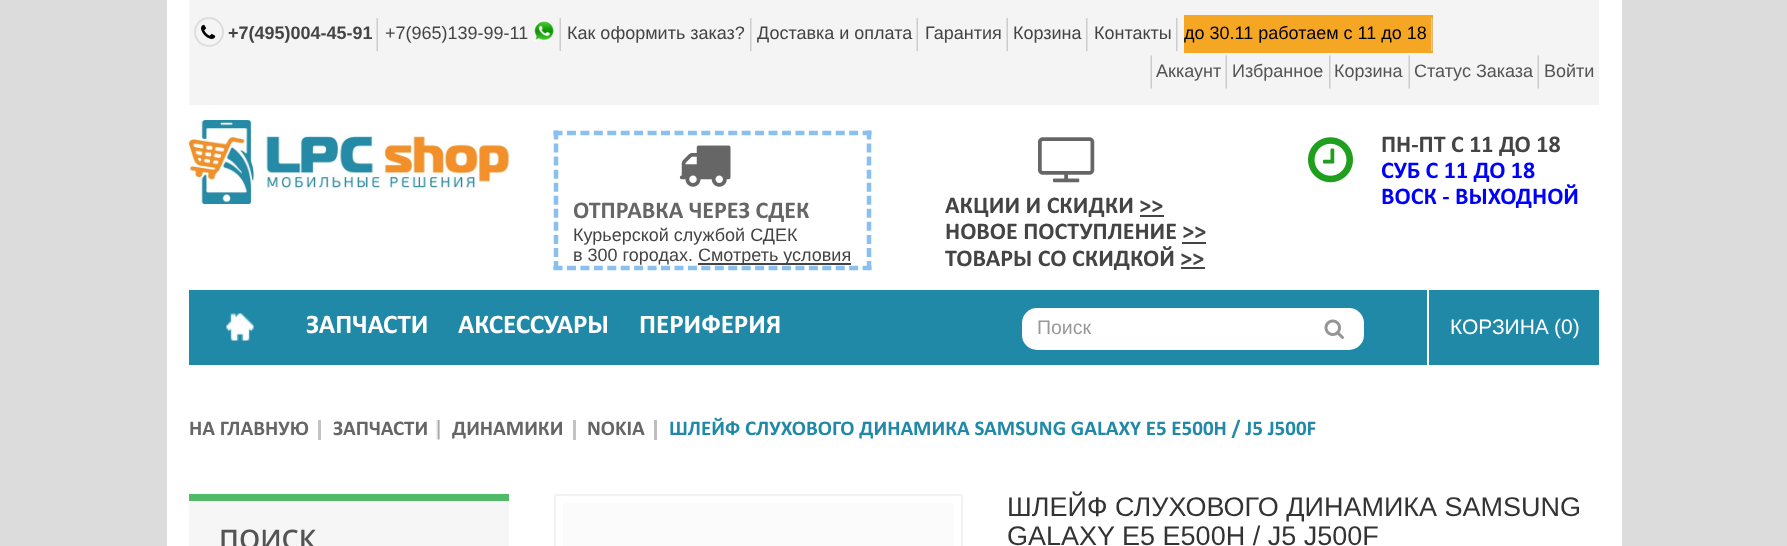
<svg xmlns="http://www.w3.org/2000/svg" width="1787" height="546">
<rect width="100%" height="100%" fill="#dcdcdc"/>
<rect x="167" width="1455" height="290" fill="#fff"/>
<rect x="189" width="1410" height="105" fill="#f4f4f4"/>
<image x="376" y="18" width="2" height="33" href="media/1.png"/>
<circle cx="209" cy="32" r="14" fill="none" stroke="#ddd" stroke-width="2"/>
<image x="201" y="24" width="15" height="15" href="media/2.png"/>
<text x="228" y="39" style="font-family:Liberation Sans;font-size:18px;font-weight:bold;fill:#444">+7(495)004-45-91</text>
<image x="559" y="18" width="2" height="33" href="media/1.png"/>
<text x="385" y="39" style="font-family:Liberation Sans;font-size:18px;fill:#444">+7(965)139-99-11</text>
<image x="534" y="20" width="21" height="21" href="media/3.png"/>
<image x="750" y="18" width="2" height="33" href="media/4.png"/>
<text x="567" y="39" style="font-family:Liberation Sans;font-size:18px;fill:#444">Как оформить заказ?</text>
<image x="916" y="18" width="2" height="33" href="media/1.png"/>
<text x="757" y="39" style="font-family:Liberation Sans;font-size:18px;fill:#444">Доставка и оплата</text>
<image x="1006" y="18" width="2" height="33" href="media/1.png"/>
<text x="925" y="39" style="font-family:Liberation Sans;font-size:18px;fill:#444">Гарантия</text>
<image x="1086" y="18" width="2" height="33" href="media/4.png"/>
<text x="1013" y="39" style="font-family:Liberation Sans;font-size:18px;fill:#444">Корзина</text>
<image x="1176" y="18" width="2" height="33" href="media/4.png"/>
<text x="1094" y="39" style="font-family:Liberation Sans;font-size:18px;fill:#444">Контакты</text>
<rect x="1184" y="15" width="249" height="38" fill="#f5a623"/>
<image x="1431" y="18" width="2" height="33" href="media/5.png"/>
<text x="1184" y="39" style="font-family:Liberation Sans;font-size:18px;fill:#000">до 30.11 работаем с 11 до 18</text>
<image x="1150" y="55" width="2" height="34" href="media/6.png"/>
<text x="1156" y="77" style="font-family:Liberation Sans;font-size:18px;fill:#555454">Аккаунт</text>
<image x="1225" y="55" width="2" height="34" href="media/6.png"/>
<text x="1232" y="77" style="font-family:Liberation Sans;font-size:18px;fill:#555454">Избранное</text>
<image x="1329" y="55" width="2" height="34" href="media/7.png"/>
<text x="1334" y="77" style="font-family:Liberation Sans;font-size:18px;fill:#555454">Корзина</text>
<image x="1408" y="55" width="2" height="34" href="media/6.png"/>
<text x="1414" y="77" style="font-family:Liberation Sans;font-size:18px;fill:#555454">Статус Заказа</text>
<image x="1537" y="55" width="2" height="34" href="media/6.png"/>
<text x="1544" y="77" style="font-family:Liberation Sans;font-size:18px;fill:#555454">Войти</text>
<rect x="167" y="290" width="1455" height="256" fill="#fff"/>
<rect x="189" y="290" width="1410" height="75" fill="#2089a7"/>
<image x="226" y="313" width="28" height="28" href="media/8.png"/>
<text x="306" y="333" style="font-family:Calibri;font-size:27px;font-weight:bold;fill:#fff">ЗАПЧАСТИ</text>
<text x="458" y="333" style="font-family:Calibri;font-size:27px;font-weight:bold;fill:#fff">АКСЕССУАРЫ</text>
<text x="639" y="333" style="font-family:Calibri;font-size:27px;font-weight:bold;fill:#fff">ПЕРИФЕРИЯ</text>
<image x="189" y="120" width="320" height="84" href="media/9.png"/>
<image x="1308" y="137" width="45" height="46" href="media/10.png"/>
<text x="1381" y="152" style="font-family:Calibri;font-size:24px;font-weight:bold;fill:#444">ПН-ПТ С 11 ДО 18</text>
<text x="1381" y="178" style="font-family:Calibri;font-size:24px;font-weight:bold;fill:#00f">СУБ С 11 ДО 18</text>
<text x="1381" y="204" style="font-family:Calibri;font-size:24px;font-weight:bold;fill:#00f">ВОСК - ВЫХОДНОЙ</text>
<path d="M553.5 133h318" fill="none" stroke="#89c0ef" stroke-width="4.5" stroke-dasharray="9 4.44"/>
<path d="M869 130.5v139.5" fill="none" stroke="#89c0ef" stroke-width="4.5" stroke-dasharray="9 4.05"/>
<path d="M553.5 268h318" fill="none" stroke="#89c0ef" stroke-width="4.5" stroke-dasharray="9 4.44"/>
<path d="M556 130.5v139.5" fill="none" stroke="#89c0ef" stroke-width="4.5" stroke-dasharray="9 4.05"/>
<image x="679" y="145" width="52" height="42" href="media/11.png"/>
<text x="573" y="218" style="font-family:Calibri;font-size:24px;font-weight:bold;fill:#666">ОТПРАВКА ЧЕРЕЗ СДЕК</text>
<text x="573" y="241" style="font-family:Liberation Sans;font-size:18px;fill:#444">Курьерской службой СДЕК</text>
<text x="573" y="261" style="font-family:Liberation Sans;font-size:18px;fill:#444">в 300 городах.</text>
<rect x="698" y="263" width="153" height="2" fill="#444"/>
<text x="698" y="261" style="font-family:Liberation Sans;font-size:18px;fill:#444">Смотреть условия</text>
<image x="1038" y="137" width="57" height="46" href="media/12.png"/>
<text x="945" y="213" style="font-family:Calibri;font-size:24px;font-weight:bold;fill:#444">АКЦИИ И СКИДКИ &gt;&gt;</text>
<rect x="1140" y="215" width="24" height="2" fill="#444"/>
<text x="945" y="239" style="font-family:Calibri;font-size:24px;font-weight:bold;fill:#444">НОВОЕ ПОСТУПЛЕНИЕ &gt;&gt;</text>
<rect x="1182" y="242" width="24" height="2" fill="#444"/>
<text x="945" y="266" style="font-family:Calibri;font-size:24px;font-weight:bold;fill:#444">ТОВАРЫ СО СКИДКОЙ &gt;&gt;</text>
<rect x="1181" y="267" width="24" height="2" fill="#444"/>
<rect x="1022" y="308" width="342" height="42" rx="15" fill="#fff"/>
<text x="1037" y="334" style="font-family:Liberation Sans;font-size:19.5px;fill:#999">Поиск</text>
<image x="1324" y="319" width="20" height="20" href="media/13.png"/>
<rect x="1427" y="290" width="2" height="75" fill="#fff"/>
<text x="1450" y="334" style="font-family:Liberation Sans;font-size:21px;fill:#fff">КОРЗИНА</text>
<text x="1554" y="334" style="font-family:Liberation Sans;font-size:21px;fill:#fff">(0)</text>
<text x="189" y="435" style="font-family:Calibri;font-size:21px;font-weight:bold;fill:#666">НА ГЛАВНУЮ</text>
<rect x="318" y="420" width="3" height="20" fill="#c3c3c3"/>
<text x="333" y="435" style="font-family:Calibri;font-size:21px;font-weight:bold;fill:#666">ЗАПЧАСТИ</text>
<image x="436" y="420" width="4" height="20" href="media/14.png"/>
<text x="452" y="435" style="font-family:Calibri;font-size:21px;font-weight:bold;fill:#666">ДИНАМИКИ</text>
<rect x="573" y="420" width="3" height="20" fill="#c3c3c3"/>
<text x="587" y="435" style="font-family:Calibri;font-size:21px;font-weight:bold;fill:#666">NOKIA</text>
<rect x="654" y="420" width="3" height="20" fill="#bfbfbf"/>
<text x="669" y="435" style="font-family:Calibri;font-size:21px;font-weight:bold;fill:#2089a7">ШЛЕЙФ СЛУХОВОГО ДИНАМИКА SAMSUNG GALAXY E5 E500H / J5 J500F</text>
<rect x="189" y="501" width="320" height="45" fill="#f6f6f6"/>
<rect x="189" y="494" width="320" height="7" fill="#50ba68"/>
<text x="219" y="549" style="font-family:Open Sans;font-size:27px;font-weight:600;fill:#555454">ПОИСК</text>
<rect x="555" y="495" width="407" height="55" rx="2" fill="none" stroke="#f1f1f1" stroke-width="2"/>
<rect x="563" y="503" width="391" height="43" fill="#fbfbfb"/>
<text x="1007" y="516" style="font-family:Liberation Sans;font-size:27px;fill:#333">ШЛЕЙФ СЛУХОВОГО ДИНАМИКА SAMSUNG</text>
<text x="1007" y="545" style="font-family:Liberation Sans;font-size:27px;fill:#333">GALAXY E5 E500H / J5 J500F</text>
</svg>
